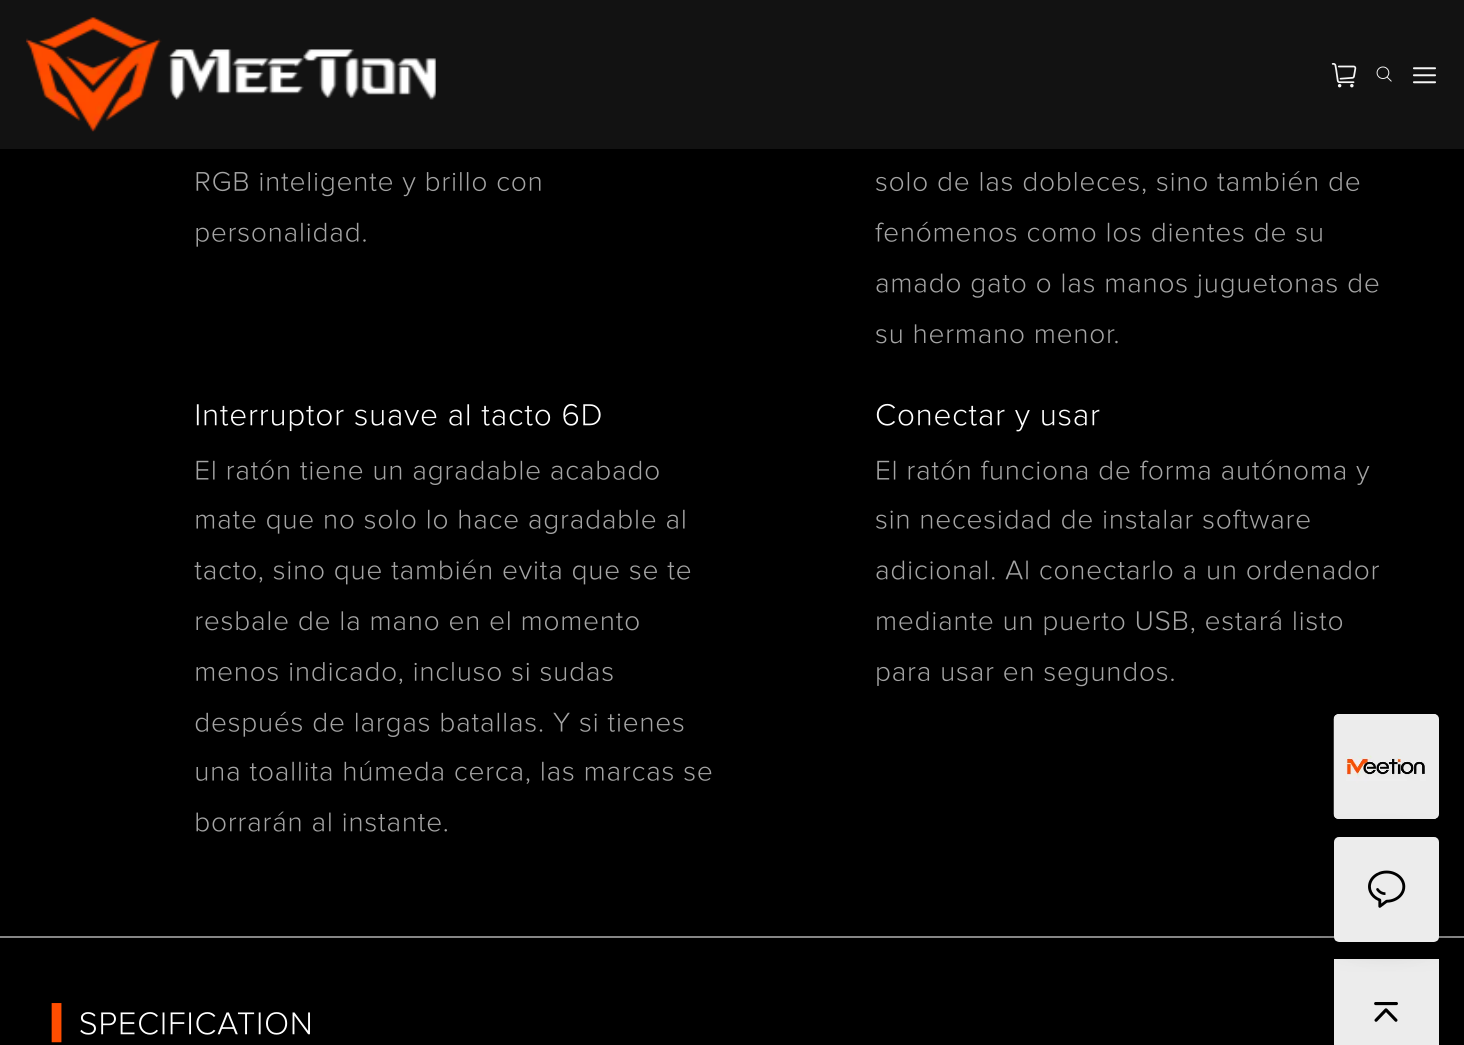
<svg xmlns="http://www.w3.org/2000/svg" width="1464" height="1045">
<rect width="100%" height="100%" fill="#000"/>
<rect x="1334" y="714" width="105" height="105" rx="5" fill="#ececec"/>
<image x="1333" y="714" width="106" height="105" href="media/1.png"/>
<rect width="1464" height="149" fill="#121212"/>
<image x="26" y="17" width="410" height="115" href="media/2.png"/>
<image x="1331" y="63" width="26" height="25" href="media/3.png"/>
<image x="1376" y="66" width="16" height="16" href="media/4.png"/>
<image x="1413" y="67" width="23" height="17" href="media/5.png"/>
<rect y="936" width="1464" height="2" fill="#858585"/>
<image x="196" y="171" width="345" height="26" href="media/6.png"/>
<image x="196" y="222" width="170" height="25" href="media/7.png"/>
<image x="876" y="171" width="484" height="24" href="media/8.png"/>
<image x="875" y="221" width="447" height="21" href="media/9.png"/>
<image x="876" y="273" width="503" height="25" href="media/10.png"/>
<image x="876" y="324" width="242" height="20" href="media/11.png"/>
<image x="196" y="403" width="405" height="29" href="media/12.png"/>
<image x="196" y="459" width="463" height="26" href="media/13.png"/>
<image x="196" y="509" width="489" height="25" href="media/14.png"/>
<image x="194" y="559" width="497" height="26" href="media/15.png"/>
<image x="196" y="611" width="443" height="20" href="media/16.png"/>
<image x="196" y="662" width="417" height="23" href="media/17.png"/>
<image x="195" y="711" width="489" height="26" href="media/18.png"/>
<image x="196" y="760" width="516" height="24" href="media/19.png"/>
<image x="196" y="811" width="251" height="21" href="media/20.png"/>
<image x="876" y="403" width="224" height="29" href="media/21.png"/>
<image x="877" y="459" width="493" height="26" href="media/22.png"/>
<image x="876" y="509" width="434" height="20" href="media/23.png"/>
<image x="876" y="560" width="503" height="20" href="media/24.png"/>
<image x="877" y="610" width="466" height="26" href="media/25.png"/>
<image x="877" y="662" width="297" height="25" href="media/26.png"/>
<text x="52" y="1034" style="font-family:DejaVu Sans;font-size:33px;letter-spacing:1px;fill:#ff4d00">▍</text>
<image x="80" y="1012" width="230" height="23" href="media/27.png"/>
<rect x="1334" y="959" width="105" height="86" fill="#ececec"/>
<rect x="1334" y="840" width="105" height="105" rx="52.5" fill="#0000001f" filter="blur(14px)"/>
<rect x="1334" y="840" width="105" height="105" rx="5" fill="#0000001f" filter="blur(14px)"/>
<rect x="1334" y="837" width="105" height="105" rx="5" fill="#ececec"/>
<image x="1368" y="870" width="38" height="38" href="media/28.png"/>
<image x="1374" y="1002" width="24" height="20" href="media/29.png"/>
</svg>
